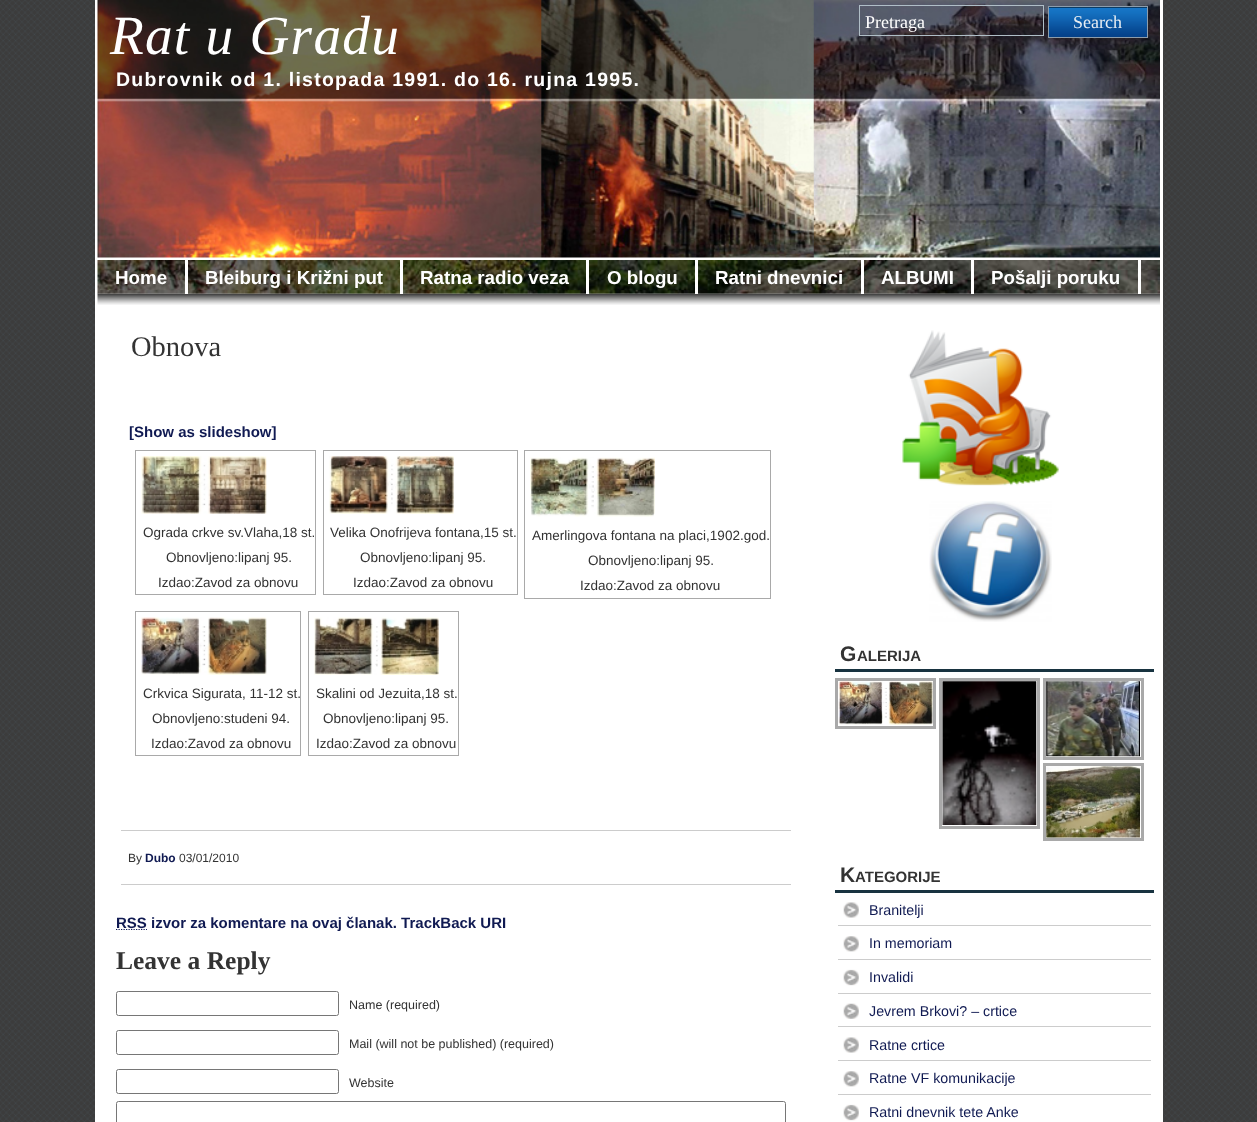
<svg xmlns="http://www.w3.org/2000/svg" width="1257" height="1122">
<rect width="100%" height="100%" fill="#fff"/>
<image x="0" y="0" width="1257" height="1122" href="media/1.png"/>
<rect x="95" width="1068" height="1122" fill="#fff"/>
<image x="97" y="0" width="1063" height="258" href="media/2.png"/>
<text x="110" y="54" style="font-family:Liberation Serif;font-size:55.25px;font-style:italic;letter-spacing:1.25px;fill:#fff">Rat u Gradu</text>
<rect x="859.5" y="5.5" width="184" height="30" fill="none" stroke="#b0bec7"/>
<text x="865" y="28" style="font-family:Liberation Serif;font-size:18px;fill:#fff">Pretraga</text>
<rect x="1049" y="7" width="98" height="1" fill="#000"/>
<image x="1049" y="7" width="98" height="30" href="media/3.png"/>
<rect x="1048.5" y="6.5" width="99" height="31" fill="none" stroke="#8d9dac"/>
<text x="1073" y="28" style="font-family:Liberation Serif;font-size:18px;fill:#e9eef3">Search</text>
<text x="116" y="86" style="font-family:Liberation Sans;font-size:19.5px;font-weight:bold;letter-spacing:1.25px;fill:#fff">Dubrovnik od 1. listopada 1991. do 16. rujna 1995.</text>
<image x="97" y="260" width="1063" height="34" href="media/4.png"/>
<image x="97" y="293" width="1063" height="12" href="media/5.png"/>
<rect x="185" y="260" width="3" height="34" fill="#fff"/>
<text x="115" y="284" style="font-family:Liberation Sans;font-size:18.75px;font-weight:bold;fill:#fff">Home</text>
<rect x="400" y="260" width="3" height="34" fill="#fff"/>
<text x="205" y="284" style="font-family:Liberation Sans;font-size:18.75px;font-weight:bold;fill:#fff">Bleiburg i Križni put</text>
<rect x="586" y="260" width="3" height="34" fill="#fff"/>
<text x="420" y="284" style="font-family:Liberation Sans;font-size:18.75px;font-weight:bold;fill:#fff">Ratna radio veza</text>
<rect x="695" y="260" width="3" height="34" fill="#fff"/>
<text x="607" y="284" style="font-family:Liberation Sans;font-size:18.75px;font-weight:bold;fill:#fff">O blogu</text>
<rect x="861" y="260" width="3" height="34" fill="#fff"/>
<text x="715" y="284" style="font-family:Liberation Sans;font-size:18.75px;font-weight:bold;fill:#fff">Ratni dnevnici</text>
<rect x="971" y="260" width="3" height="34" fill="#fff"/>
<text x="881" y="284" style="font-family:Liberation Sans;font-size:18.75px;font-weight:bold;fill:#fff">ALBUMI</text>
<rect x="1138" y="260" width="3" height="34" fill="#fff"/>
<text x="991" y="284" style="font-family:Liberation Sans;font-size:18.75px;font-weight:bold;fill:#fff">Pošalji poruku</text>
<text x="131" y="356" style="font-family:Liberation Serif;font-size:28.5px;fill:#333">Obnova</text>
<text x="129" y="437" style="font-family:Liberation Sans;font-size:15px;font-weight:bold;fill:#101a52">[Show as slideshow]</text>
<rect x="135.5" y="450.5" width="180" height="144" fill="none" stroke="#a9a9a9"/>
<image x="141" y="456" width="126" height="58" href="media/6.png"/>
<text x="143" y="537" style="font-family:Liberation Sans;font-size:13.5px;fill:#333">Ograda crkve sv.Vlaha,18 st.</text>
<text x="166" y="562" style="font-family:Liberation Sans;font-size:13.5px;fill:#333">Obnovljeno:lipanj 95.</text>
<text x="158" y="587" style="font-family:Liberation Sans;font-size:13.5px;fill:#333">Izdao:Zavod za obnovu</text>
<rect x="323.5" y="450.5" width="194" height="144" fill="none" stroke="#a9a9a9"/>
<image x="329" y="456" width="125" height="58" href="media/7.png"/>
<text x="330" y="537" style="font-family:Liberation Sans;font-size:13.5px;fill:#333">Velika Onofrijeva fontana,15 st.</text>
<text x="360" y="562" style="font-family:Liberation Sans;font-size:13.5px;fill:#333">Obnovljeno:lipanj 95.</text>
<text x="353" y="587" style="font-family:Liberation Sans;font-size:13.5px;fill:#333">Izdao:Zavod za obnovu</text>
<rect x="524.5" y="450.5" width="246" height="148" fill="none" stroke="#a9a9a9"/>
<image x="530" y="457" width="125" height="60" href="media/8.png"/>
<text x="532" y="540" style="font-family:Liberation Sans;font-size:13.5px;fill:#333">Amerlingova fontana na placi,1902.god.</text>
<text x="588" y="565" style="font-family:Liberation Sans;font-size:13.5px;fill:#333">Obnovljeno:lipanj 95.</text>
<text x="580" y="590" style="font-family:Liberation Sans;font-size:13.5px;fill:#333">Izdao:Zavod za obnovu</text>
<rect x="135.5" y="611.5" width="165" height="144" fill="none" stroke="#a9a9a9"/>
<image x="141" y="617" width="126" height="58" href="media/9.png"/>
<text x="143" y="698" style="font-family:Liberation Sans;font-size:13.5px;fill:#333">Crkvica Sigurata, 11-12 st.</text>
<text x="152" y="723" style="font-family:Liberation Sans;font-size:13.5px;fill:#333">Obnovljeno:studeni 94.</text>
<text x="151" y="748" style="font-family:Liberation Sans;font-size:13.5px;fill:#333">Izdao:Zavod za obnovu</text>
<rect x="308.5" y="611.5" width="150" height="144" fill="none" stroke="#a9a9a9"/>
<image x="314" y="617" width="125" height="58" href="media/10.png"/>
<text x="316" y="698" style="font-family:Liberation Sans;font-size:13.5px;fill:#333">Skalini od Jezuita,18 st.</text>
<text x="323" y="723" style="font-family:Liberation Sans;font-size:13.5px;fill:#333">Obnovljeno:lipanj 95.</text>
<text x="316" y="748" style="font-family:Liberation Sans;font-size:13.5px;fill:#333">Izdao:Zavod za obnovu</text>
<rect x="121" y="830" width="670" height="1" fill="#ccc"/>
<rect x="121" y="884" width="670" height="1" fill="#ccc"/>
<text x="128" y="862" style="font-family:Liberation Sans;font-size:12px;fill:#333">By</text>
<text x="145" y="862" style="font-family:Liberation Sans;font-size:12px;font-weight:bold;fill:#101a52">Dubo</text>
<text x="179" y="862" style="font-family:Liberation Sans;font-size:12px;fill:#333">03/01/2010</text>
<path d="M116 929.5h31" fill="none" stroke="#101a52" stroke-width="1.2" stroke-dasharray="1.25 1.25"/>
<text x="116" y="928" style="font-family:Liberation Sans;font-size:15px;font-weight:bold;fill:#101a52">RSS izvor za komentare na ovaj članak. TrackBack URI</text>
<text x="116" y="969" style="font-family:Liberation Serif;font-size:25.5px;font-weight:bold;fill:#333">Leave a Reply</text>
<rect x="116.5" y="991.5" width="222" height="24" rx="2" fill="none" stroke="#767676"/>
<text x="349" y="1009" style="font-family:Liberation Sans;font-size:12.5px;fill:#333">Name (required)</text>
<rect x="116.5" y="1030.5" width="222" height="24" rx="2" fill="none" stroke="#767676"/>
<text x="349" y="1048" style="font-family:Liberation Sans;font-size:12.5px;fill:#333">Mail (will not be published) (required)</text>
<rect x="116.5" y="1069.5" width="222" height="24" rx="2" fill="none" stroke="#767676"/>
<text x="349" y="1087" style="font-family:Liberation Sans;font-size:12.5px;fill:#333">Website</text>
<rect x="116.5" y="1101.5" width="669" height="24" rx="2" fill="none" stroke="#767676"/>
<image x="902" y="330" width="157" height="156" href="media/11.png"/>
<image x="929" y="501" width="123" height="121" href="media/12.png"/>
<rect x="835" y="669" width="319" height="3" fill="#183340"/>
<text x="840" y="661" style="font-family:Liberation Sans;font-size:21px;font-weight:bold;fill:#333">G</text>
<text x="857" y="661" style="font-family:Liberation Sans;font-size:15px;font-weight:bold;fill:#333">ALERIJA</text>
<rect x="836.5" y="679.5" width="98" height="48" fill="none" stroke="#a9a9a9" stroke-width="3"/>
<image x="838" y="681" width="95" height="44" href="media/13.png"/>
<rect x="940.5" y="679.5" width="98" height="148" fill="none" stroke="#a9a9a9" stroke-width="3"/>
<image x="942" y="681" width="95" height="144" href="media/14.png"/>
<rect x="1044.5" y="679.5" width="98" height="79" fill="none" stroke="#a9a9a9" stroke-width="3"/>
<image x="1046" y="681" width="94" height="76" href="media/15.png"/>
<rect x="1044.5" y="764.5" width="98" height="75" fill="none" stroke="#a9a9a9" stroke-width="3"/>
<image x="1046" y="766" width="94" height="72" href="media/16.png"/>
<rect x="835" y="890" width="319" height="3" fill="#183340"/>
<text x="840" y="882" style="font-family:Liberation Sans;font-size:21px;font-weight:bold;fill:#333">K</text>
<text x="855" y="882" style="font-family:Liberation Sans;font-size:15px;font-weight:bold;fill:#333">ATEGORIJE</text>
<image x="843" y="902" width="16" height="16" href="media/17.png"/>
<rect x="838" y="925" width="313" height="1" fill="#ccc"/>
<text x="869" y="915" style="font-family:Liberation Sans;font-size:14.25px;fill:#101a52">Branitelji</text>
<image x="843" y="936" width="16" height="16" href="media/18.png"/>
<rect x="838" y="959" width="313" height="1" fill="#ccc"/>
<text x="869" y="948" style="font-family:Liberation Sans;font-size:14.25px;fill:#101a52">In memoriam</text>
<image x="843" y="969" width="16" height="17" href="media/19.png"/>
<rect x="838" y="993" width="313" height="1" fill="#ccc"/>
<text x="869" y="982" style="font-family:Liberation Sans;font-size:14.25px;fill:#101a52">Invalidi</text>
<image x="843" y="1003" width="16" height="16" href="media/20.png"/>
<rect x="838" y="1026" width="313" height="1" fill="#ccc"/>
<text x="869" y="1016" style="font-family:Liberation Sans;font-size:14.25px;fill:#101a52">Jevrem Brkovi? – crtice</text>
<image x="843" y="1037" width="16" height="16" href="media/17.png"/>
<rect x="838" y="1060" width="313" height="1" fill="#ccc"/>
<text x="869" y="1050" style="font-family:Liberation Sans;font-size:14.25px;fill:#101a52">Ratne crtice</text>
<image x="843" y="1071" width="16" height="16" href="media/18.png"/>
<rect x="838" y="1094" width="313" height="1" fill="#ccc"/>
<text x="869" y="1083" style="font-family:Liberation Sans;font-size:14.25px;fill:#101a52">Ratne VF komunikacije</text>
<image x="843" y="1104" width="16" height="17" href="media/19.png"/>
<text x="869" y="1117" style="font-family:Liberation Sans;font-size:14.25px;fill:#101a52">Ratni dnevnik tete Anke</text>
</svg>
